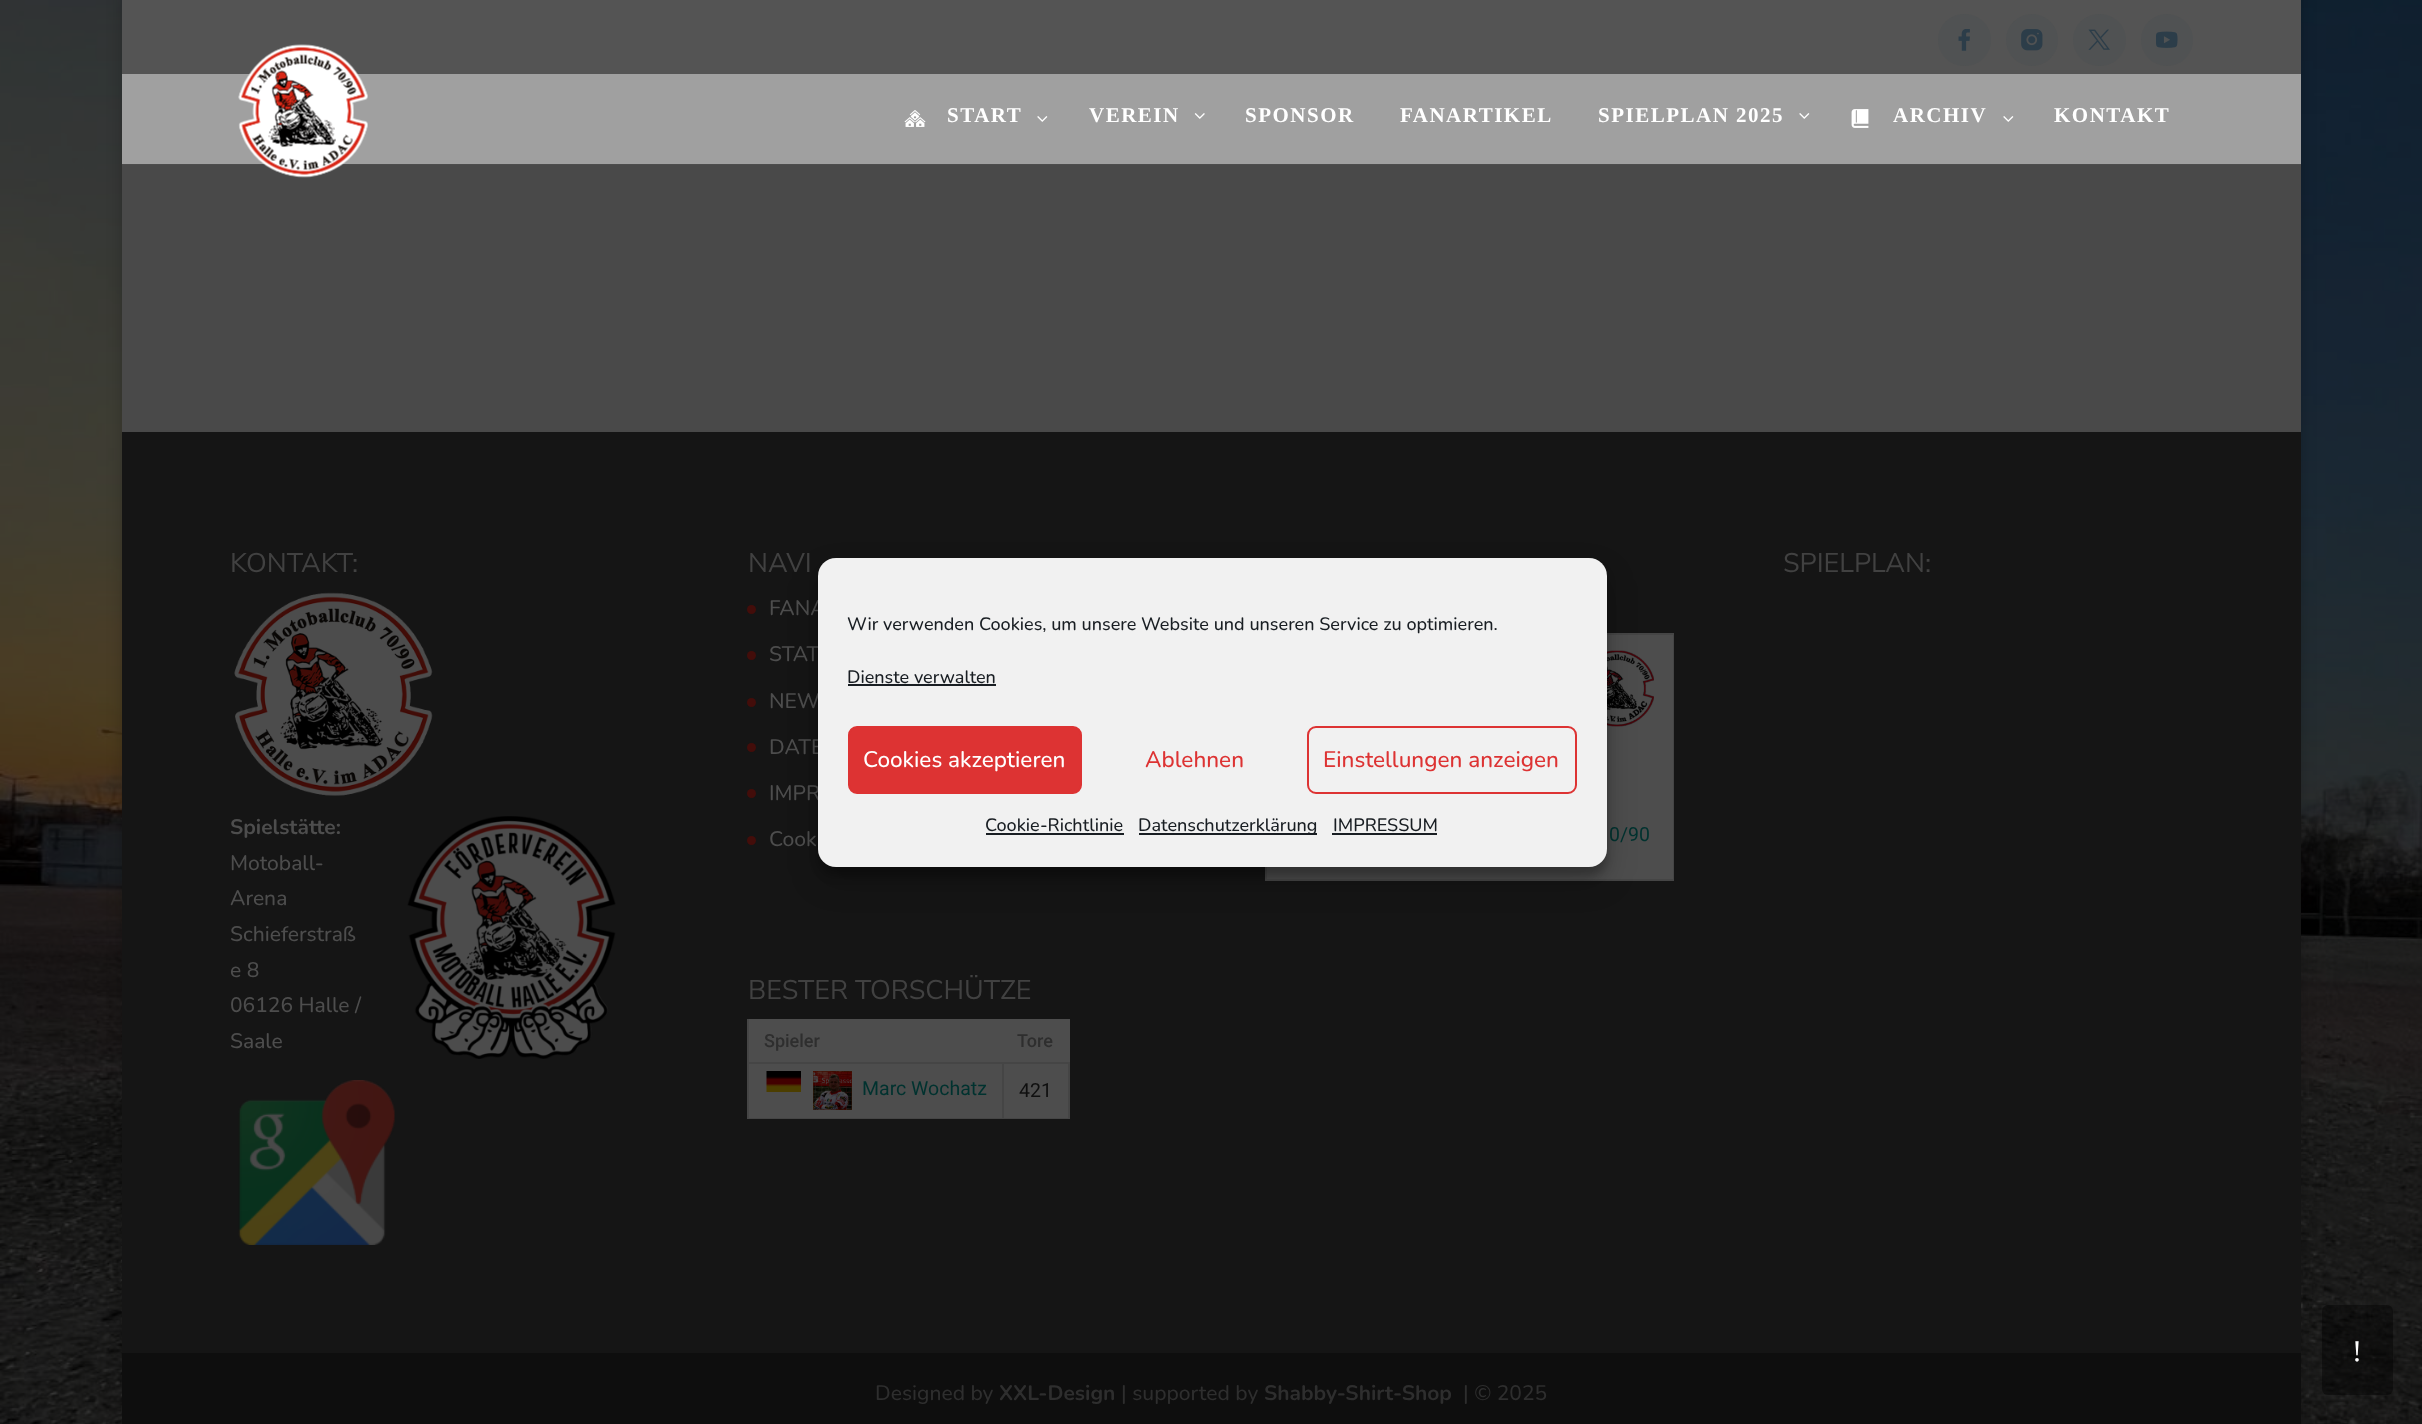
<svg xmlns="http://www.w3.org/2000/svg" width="2422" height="1424">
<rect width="100%" height="100%" fill="#fff"/>
<image x="0" y="0" width="2422" height="1424" href="media/1.png"/>
<rect x="122" y="-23" width="2179" height="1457" fill="#00000033" filter="blur(7.5px)"/>
<rect x="122" width="2179" height="74" fill="#545454"/>
<rect x="1938" y="14" width="53" height="52" rx="26" fill="#505253"/>
<image x="1958" y="29" width="12" height="22" href="media/2.png"/>
<circle cx="2032" cy="40" r="26" fill="#505253"/>
<image x="2021" y="29" width="22" height="22" href="media/3.png"/>
<rect x="2073" y="14" width="53" height="52" rx="26" fill="#505253"/>
<image x="2088" y="29" width="22" height="21" href="media/4.png"/>
<circle cx="2167" cy="40" r="26" fill="#505253"/>
<image x="2156" y="31" width="22" height="17" href="media/5.png"/>
<rect x="122" y="74" width="2179" height="90" fill="#a0a0a0"/>
<rect x="122" y="164" width="2179" height="1" fill="#4d4d4d"/>
<rect x="122" y="165" width="2179" height="267" fill="#494949"/>
<image x="238" y="44" width="130" height="134" href="media/6.png"/>
<image x="904" y="110" width="22" height="17" href="media/7.png"/>
<text x="947" y="122" style="font-family:Liberation Serif;font-size:21px;font-weight:bold;letter-spacing:1.5px;fill:#fff">START</text>
<image x="1037" y="116" width="11" height="6" href="media/8.png"/>
<text x="1089" y="122" style="font-family:Liberation Serif;font-size:21px;font-weight:bold;letter-spacing:1.5px;fill:#fff">VEREIN</text>
<image x="1194" y="113" width="11" height="6" href="media/9.png"/>
<text x="1245" y="122" style="font-family:Liberation Serif;font-size:21px;font-weight:bold;letter-spacing:1.5px;fill:#fff">SPONSOR</text>
<text x="1400" y="122" style="font-family:Liberation Serif;font-size:21px;font-weight:bold;letter-spacing:1.5px;fill:#fff">FANARTIKEL</text>
<text x="1598" y="122" style="font-family:Liberation Serif;font-size:21px;font-weight:bold;letter-spacing:1.5px;fill:#fff">SPIELPLAN 2025</text>
<image x="1799" y="113" width="11" height="6" href="media/8.png"/>
<image x="1851" y="109" width="18" height="19" href="media/10.png"/>
<text x="1893" y="122" style="font-family:Liberation Serif;font-size:21px;font-weight:bold;letter-spacing:1.5px;fill:#fff">ARCHIV</text>
<image x="2003" y="116" width="11" height="6" href="media/8.png"/>
<text x="2054" y="122" style="font-family:Liberation Serif;font-size:21px;font-weight:bold;letter-spacing:1.5px;fill:#fff">KONTAKT</text>
<rect x="122" y="432" width="2179" height="921" fill="#151515"/>
<text x="230" y="572" style="font-family:Nunito Sans;font-size:27px;fill:#414141">KONTAKT:</text>
<image x="234" y="592" width="199" height="204" href="media/11.png"/>
<text x="230" y="834" style="font-family:Nunito;font-size:21px;font-weight:bold;fill:#4d4d4d">Spielstätte:</text>
<image x="407" y="816" width="209" height="243" href="media/12.png"/>
<text x="230" y="870" style="font-family:Nunito;font-size:21px;font-weight:500;fill:#4d4d4d">Motoball-</text>
<text x="230" y="905" style="font-family:Nunito;font-size:21px;font-weight:500;fill:#4d4d4d">Arena</text>
<text x="230" y="941" style="font-family:Nunito;font-size:21px;font-weight:500;fill:#4d4d4d">Schieferstraß</text>
<text x="230" y="977" style="font-family:Nunito;font-size:21px;font-weight:500;fill:#4d4d4d">e 8</text>
<text x="230" y="1012" style="font-family:Nunito;font-size:21px;font-weight:500;fill:#4d4d4d">06126 Halle /</text>
<text x="230" y="1048" style="font-family:Nunito;font-size:21px;font-weight:500;fill:#4d4d4d">Saale</text>
<image x="238" y="1080" width="157" height="165" href="media/13.png"/>
<text x="748" y="572" style="font-family:Nunito Sans;font-size:27px;fill:#414141">NAVI</text>
<circle cx="751.5" cy="609.5" r="4.5" fill="#430d0a"/>
<text x="769" y="615" style="font-family:Nunito;font-size:21px;font-weight:500;fill:#4d4d4d">FANA</text>
<circle cx="751.5" cy="655.5" r="4.5" fill="#430d0a"/>
<text x="769" y="661" style="font-family:Nunito;font-size:21px;font-weight:500;fill:#4d4d4d">STAT</text>
<circle cx="751.5" cy="702.5" r="4.5" fill="#430d0a"/>
<text x="769" y="708" style="font-family:Nunito;font-size:21px;font-weight:500;fill:#4d4d4d">NEW</text>
<circle cx="751.5" cy="747.5" r="4.5" fill="#430d0a"/>
<text x="769" y="754" style="font-family:Nunito;font-size:21px;font-weight:500;fill:#4d4d4d">DATE</text>
<circle cx="751.5" cy="793.5" r="4.5" fill="#430d0a"/>
<text x="769" y="800" style="font-family:Nunito;font-size:21px;font-weight:500;fill:#4d4d4d">IMPR</text>
<circle cx="751.5" cy="840.5" r="4.5" fill="#430d0a"/>
<text x="769" y="846" style="font-family:Nunito;font-size:21px;font-weight:500;fill:#4d4d4d">Cook</text>
<text x="748" y="999" style="font-family:Nunito Sans;font-size:27px;fill:#414141">BESTER TORSCHÜTZE</text>
<rect x="749" y="1064" width="319" height="54" fill="#4d4d4d"/>
<rect x="1068" y="1064" width="2" height="55" fill="#454545"/>
<rect x="747" y="1118" width="323" height="1" fill="#454545"/>
<rect x="747" y="1019" width="2" height="100" fill="#454545"/>
<rect x="749" y="1019" width="321" height="43" fill="#4d4d4d"/>
<text x="764" y="1047" style="font-family:Roboto;font-size:18px;font-weight:500;fill:#2e2e2e">Spieler</text>
<text x="1017" y="1047" style="font-family:Roboto;font-size:18px;font-weight:500;fill:#2e2e2e">Tore</text>
<rect x="1002" y="1062" width="68" height="2" fill="#454545"/>
<rect x="1002" y="1062" width="2" height="57" fill="#454545"/>
<rect x="747" y="1062" width="257" height="2" fill="#454545"/>
<image x="766" y="1071" width="35" height="21" href="media/14.png"/>
<image x="813" y="1071" width="39" height="39" href="media/15.png"/>
<text x="862" y="1095" style="font-family:Roboto;font-size:19.5px;fill:#00322f">Marc Wochatz</text>
<text x="1019" y="1097" style="font-family:Roboto;font-size:19.5px;fill:#0f0f0f">421</text>
<text x="1783" y="572" style="font-family:Nunito Sans;font-size:27px;fill:#414141">SPIELPLAN:</text>
<rect x="1267" y="635" width="406" height="244" fill="#4d4d4d"/>
<rect x="1607" y="633" width="67" height="2" fill="#454545"/>
<rect x="1673" y="633" width="1" height="248" fill="#454545"/>
<rect x="1265" y="879" width="409" height="2" fill="#454545"/>
<rect x="1265" y="867" width="2" height="14" fill="#454545"/>
<image x="1607" y="650" width="47" height="77" href="media/16.png"/>
<text x="1609" y="841" style="font-family:Roboto;font-size:19.5px;fill:#00322f">0/90</text>
<rect x="122" y="1353" width="2179" height="71" fill="#0e0e0e"/>
<text x="875" y="1400" style="font-family:Nunito;font-size:21px;font-weight:500;fill:#2e2e2e">Designed by</text>
<text x="999" y="1400" style="font-family:Nunito;font-size:21px;font-weight:bold;fill:#2e2e2e">XXL-Design</text>
<text x="1121" y="1400" style="font-family:Nunito;font-size:21px;font-weight:500;fill:#2e2e2e">| supported by</text>
<text x="1264" y="1400" style="font-family:Nunito;font-size:21px;font-weight:bold;fill:#2e2e2e">Shabby-Shirt-Shop</text>
<text x="1463" y="1400" style="font-family:Nunito;font-size:21px;font-weight:500;fill:#2e2e2e">| © 2025</text>
<rect x="2322" y="1305" width="71" height="90" rx="6" fill="#00000066"/>
<text x="2352" y="1361" style="font-family:Liberation Serif;font-size:30px;fill:#fff">!</text>
<rect x="818" y="567" width="789" height="309" rx="18" fill="#0000003b" filter="blur(4.5px)"/>
<rect x="818" y="573" width="789" height="309" rx="18" fill="#00000030" filter="blur(15px)"/>
<rect x="818" y="558" width="789" height="309" rx="18" fill="#f1f1f1"/>
<text x="847" y="630" style="font-family:Nunito;font-size:18px;font-weight:500;fill:#191e23">Wir verwenden Cookies, um unsere Website und unseren Service zu optimieren.</text>
<text x="847" y="683" style="font-family:Nunito;font-size:18px;font-weight:500;fill:#191e23">Dienste verwalten</text>
<rect x="848" y="684" width="148" height="2" fill="#191e23"/>
<rect x="849" y="727" width="232" height="66" rx="8" fill="#d33" stroke="#d33" stroke-width="2"/>
<text x="863" y="767" style="font-family:Nunito;font-size:22.5px;font-weight:500;fill:#fff">Cookies akzeptieren</text>
<text x="1145" y="767" style="font-family:Nunito;font-size:22.5px;font-weight:500;fill:#d33">Ablehnen</text>
<rect x="1308" y="727" width="268" height="66" rx="8" fill="none" stroke="#d33" stroke-width="2"/>
<text x="1323" y="767" style="font-family:Nunito;font-size:22.5px;font-weight:500;fill:#d33">Einstellungen anzeigen</text>
<text x="985" y="831" style="font-family:Nunito;font-size:18px;font-weight:500;fill:#191e23">Cookie-Richtlinie</text>
<rect x="986" y="833" width="138" height="2" fill="#191e23"/>
<rect x="1139" y="833" width="178" height="2" fill="#191e23"/>
<text x="1138" y="831" style="font-family:Nunito;font-size:18px;font-weight:500;fill:#191e23">Datenschutzerklärung</text>
<text x="1333" y="831" style="font-family:Nunito;font-size:18px;font-weight:500;fill:#191e23">IMPRESSUM</text>
<rect x="1332" y="833" width="105" height="2" fill="#191e23"/>
</svg>
